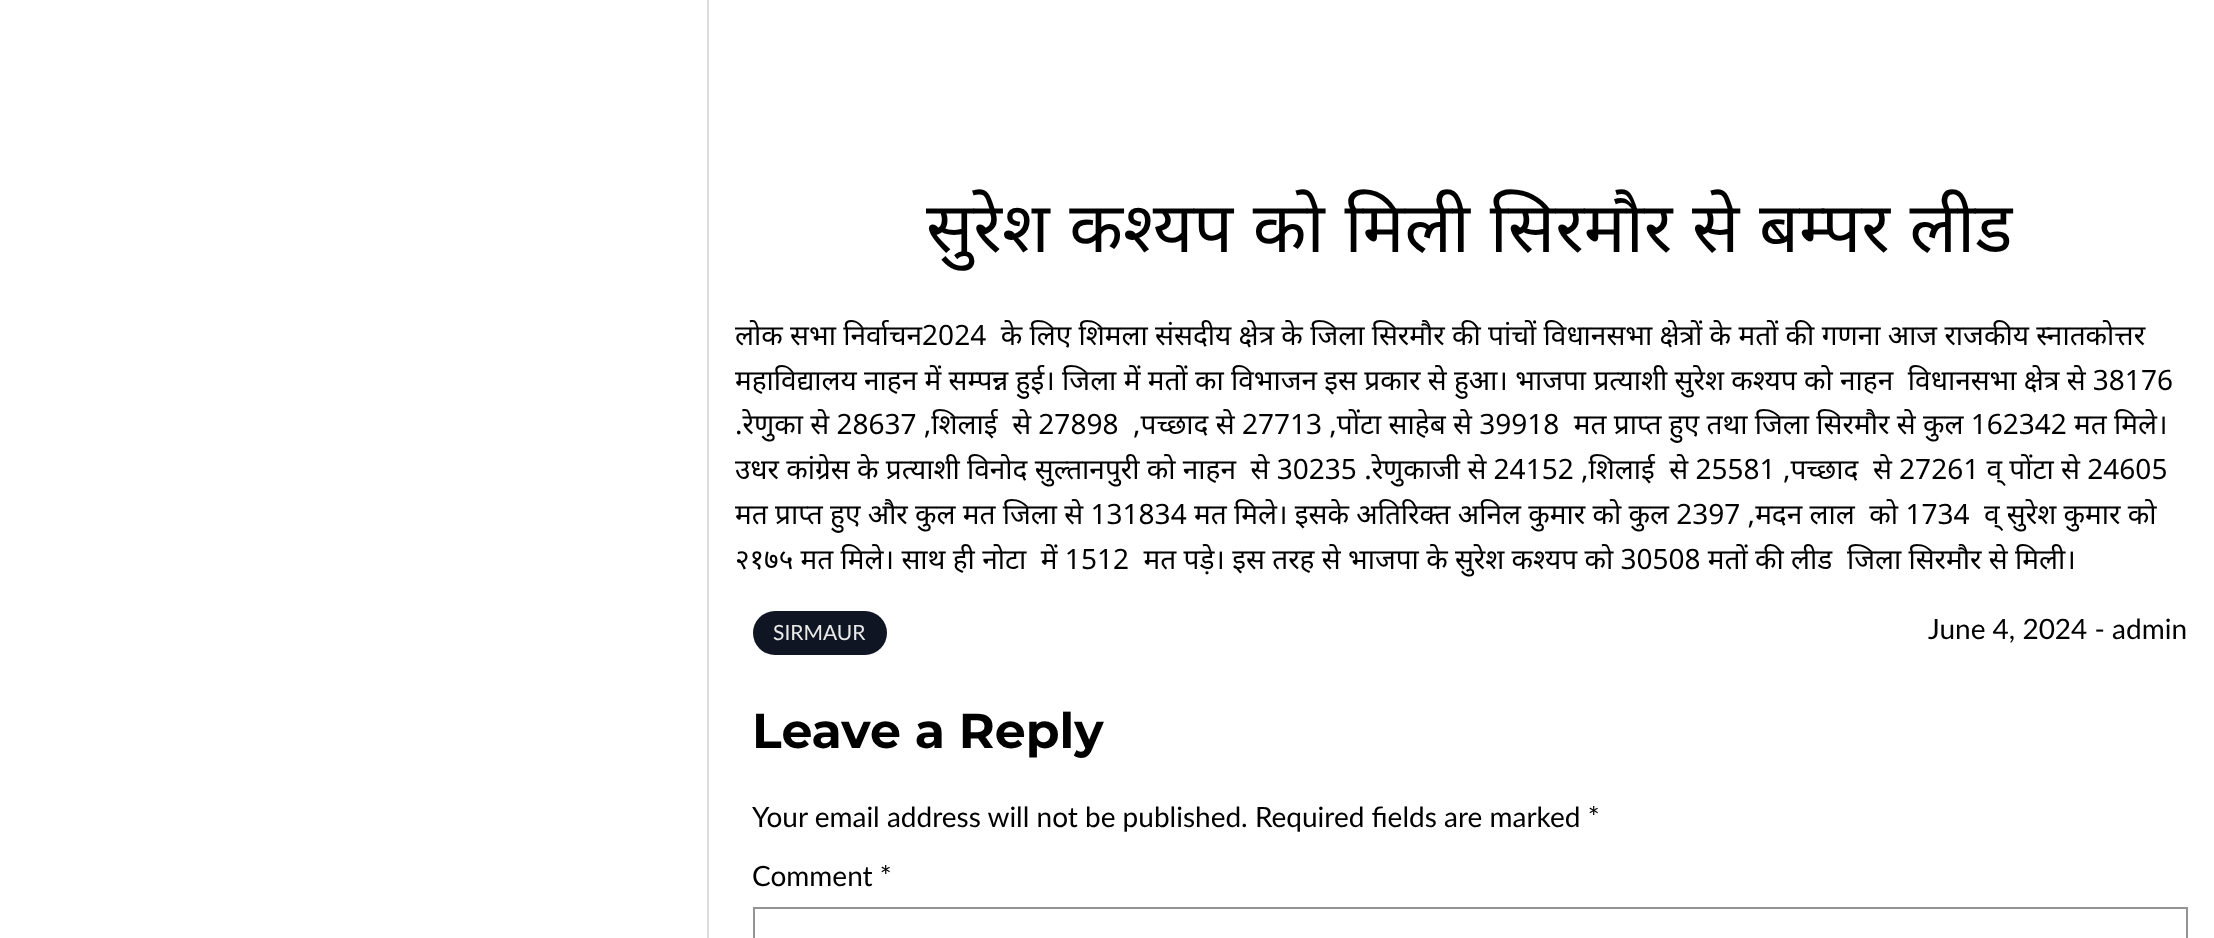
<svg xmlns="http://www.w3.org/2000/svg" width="2214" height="938">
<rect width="100%" height="100%" fill="#fff"/>
<rect x="708" y="-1" width="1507" height="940" fill="none" stroke="#ddd" stroke-width="2"/>
<text x="926" y="252" word-spacing="1.5" style="font-family:Noto Sans;font-size:70px;fill:#000">सुरेश कश्यप को मिली सिरमौर से बम्पर लीड</text>
<text x="735" y="345" style="font-family:Noto Sans;font-size:28px;fill:#000" xml:space="preserve">लोक सभा निर्वाचन2024  के लिए शिमला संसदीय क्षेत्र के जिला सिरमौर की पांचों विधानसभा क्षेत्रों के मतों की गणना आज राजकीय स्नातकोत्तर</text>
<text x="735" y="390" style="font-family:Noto Sans;font-size:28px;fill:#000" xml:space="preserve">महाविद्यालय नाहन में सम्पन्न हुई। जिला में मतों का विभाजन इस प्रकार से हुआ। भाजपा प्रत्याशी सुरेश कश्यप को नाहन  विधानसभा क्षेत्र से 38176</text>
<text x="735" y="434" style="font-family:Noto Sans;font-size:28px;fill:#000" xml:space="preserve">.रेणुका से 28637 ,शिलाई  से 27898  ,पच्छाद से 27713 ,पोंटा साहेब से 39918  मत प्राप्त हुए तथा जिला सिरमौर से कुल 162342 मत मिले।</text>
<text x="735" y="479" style="font-family:Noto Sans;font-size:28px;fill:#000" xml:space="preserve">उधर कांग्रेस के प्रत्याशी विनोद सुल्तानपुरी को नाहन  से 30235 .रेणुकाजी से 24152 ,शिलाई  से 25581 ,पच्छाद  से 27261 व् पोंटा से 24605</text>
<text x="735" y="524" style="font-family:Noto Sans;font-size:28px;fill:#000" xml:space="preserve">मत प्राप्त हुए और कुल मत जिला से 131834 मत मिले। इसके अतिरिक्त अनिल कुमार को कुल 2397 ,मदन लाल  को 1734  व् सुरेश कुमार को</text>
<text x="735" y="569" style="font-family:Noto Sans;font-size:28px;fill:#000" xml:space="preserve">२१७५ मत मिले। साथ ही नोटा  में 1512  मत पड़े। इस तरह से भाजपा के सुरेश कश्यप को 30508 मतों की लीड  जिला सिरमौर से मिली।</text>
<rect x="753" y="611" width="134" height="44" rx="22" fill="#101524"/>
<text x="773" y="640" style="font-family:Lato;font-size:21px;fill:#ebebeb">SIRMAUR</text>
<text x="1928" y="639" style="font-family:Lato;font-size:28px;fill:#000">June 4, 2024 - admin</text>
<text x="752" y="748" style="font-family:Montserrat;font-size:49px;font-weight:bold;fill:#000">Leave a Reply</text>
<text x="752" y="827" style="font-family:Lato;font-size:28px;fill:#000">Your email address will not be published. Required fields are marked *</text>
<text x="752" y="886" style="font-family:Lato;font-size:28px;fill:#000">Comment *</text>
<rect x="754" y="908" width="1433" height="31" fill="none" stroke="#949494" stroke-width="2"/>
</svg>
